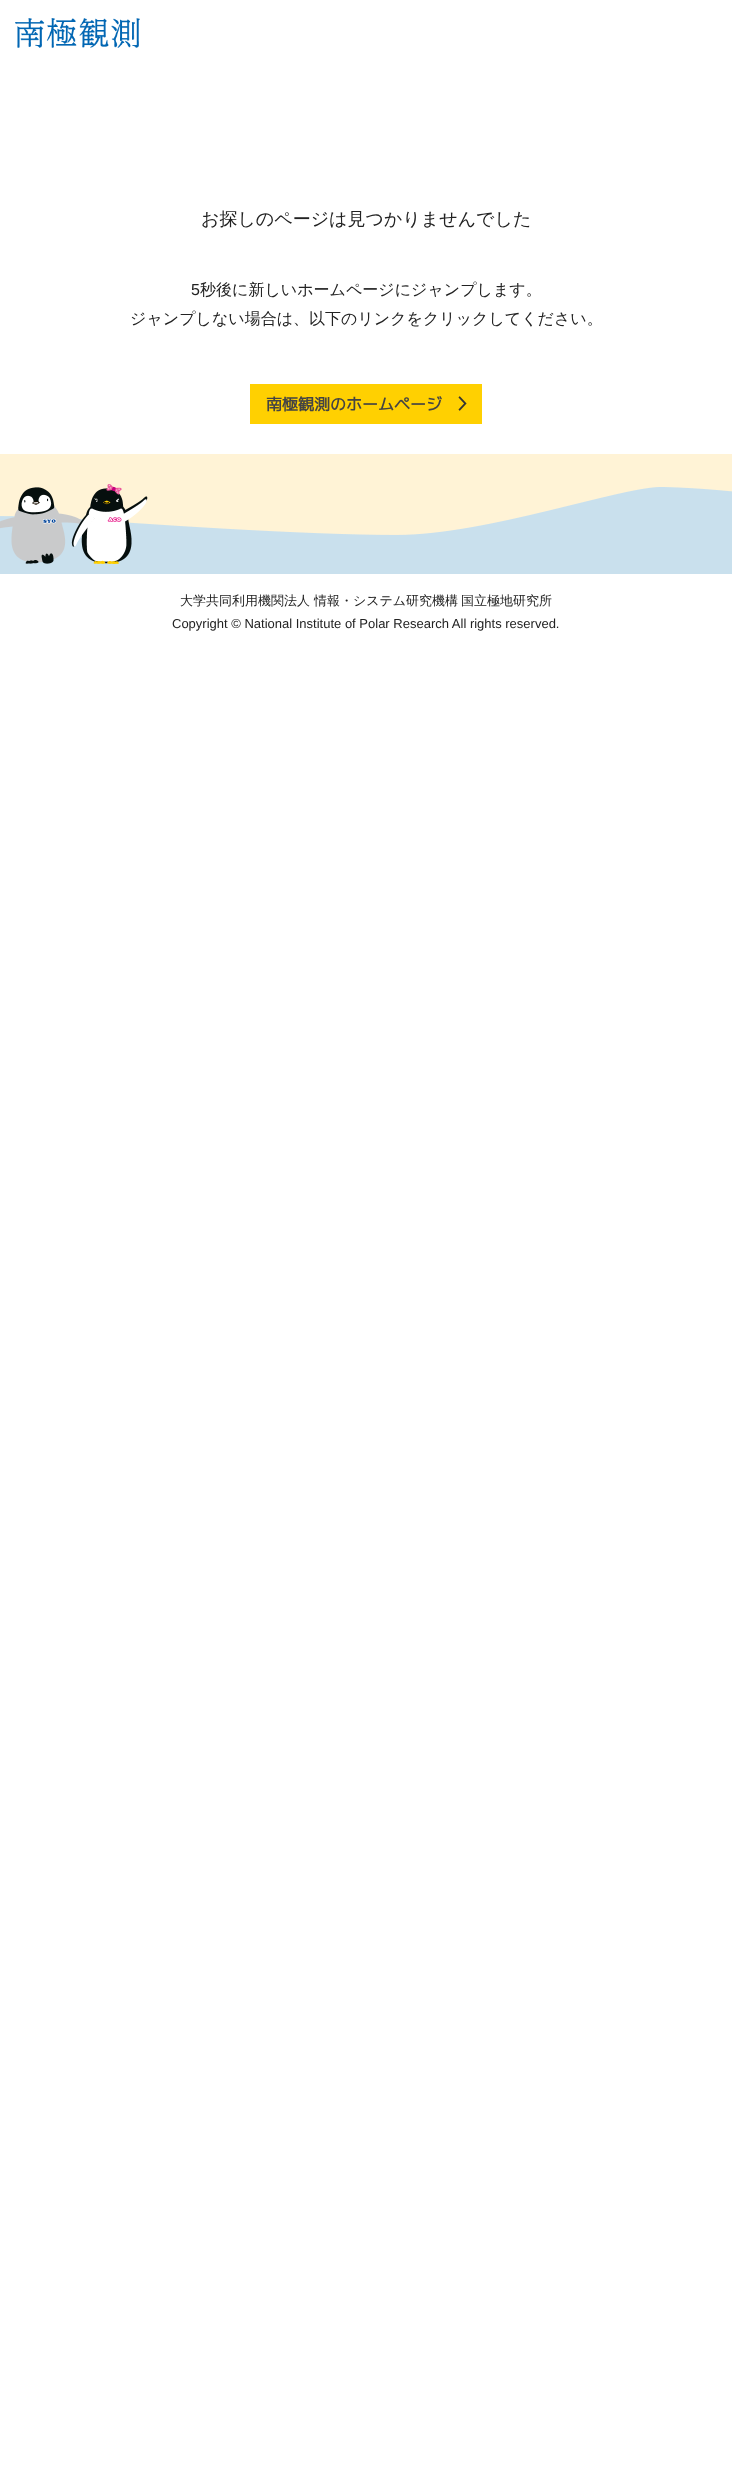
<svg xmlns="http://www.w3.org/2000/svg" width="732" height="2474">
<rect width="100%" height="100%" fill="#fff"/>
<image x="15" y="18" width="125" height="30" href="media/1.png"/>
<text x="201" y="225" style="font-family:WenQuanYi Zen Hei;font-size:18px;font-weight:500;fill:#222">お探しのページは見つかりませんでした</text>
<text x="191" y="295" style="font-family:Liberation Sans;font-size:16px;fill:#222">5</text>
<text x="200" y="295" style="font-family:WenQuanYi Zen Hei;font-size:16px;font-weight:500;fill:#222">秒後に新しいホームページにジャンプします。</text>
<text x="130" y="324" style="font-family:WenQuanYi Zen Hei;font-size:16px;font-weight:500;fill:#222">ジャンプしない場合は、以下のリンクをクリックしてください。</text>
<rect x="250" y="384" width="232" height="40" fill="#ffd001"/>
<image x="458" y="396" width="9" height="15" href="media/2.png"/>
<text x="266" y="410" style="font-family:'M PLUS 1p';font-size:16px;font-weight:bold;fill:#444">南極観測のホームページ</text>
<rect y="454" width="732" height="81" fill="#fff3d6"/>
<image x="0" y="487" width="732" height="87" href="media/3.png"/>
<image x="0" y="484" width="148" height="80" href="media/4.png"/>
<text x="180" y="605" style="font-family:WenQuanYi Zen Hei;font-size:13px;font-weight:500;fill:#222">大学共同利用機関法人 情報・システム研究機構</text>
<text x="461" y="605" style="font-family:WenQuanYi Zen Hei;font-size:13px;font-weight:500;fill:#222">国立極地研究所</text>
<text x="172" y="628" style="font-family:Liberation Sans;font-size:13px;fill:#222">Copyright © National Institute of Polar Research All rights reserved.</text>
</svg>
